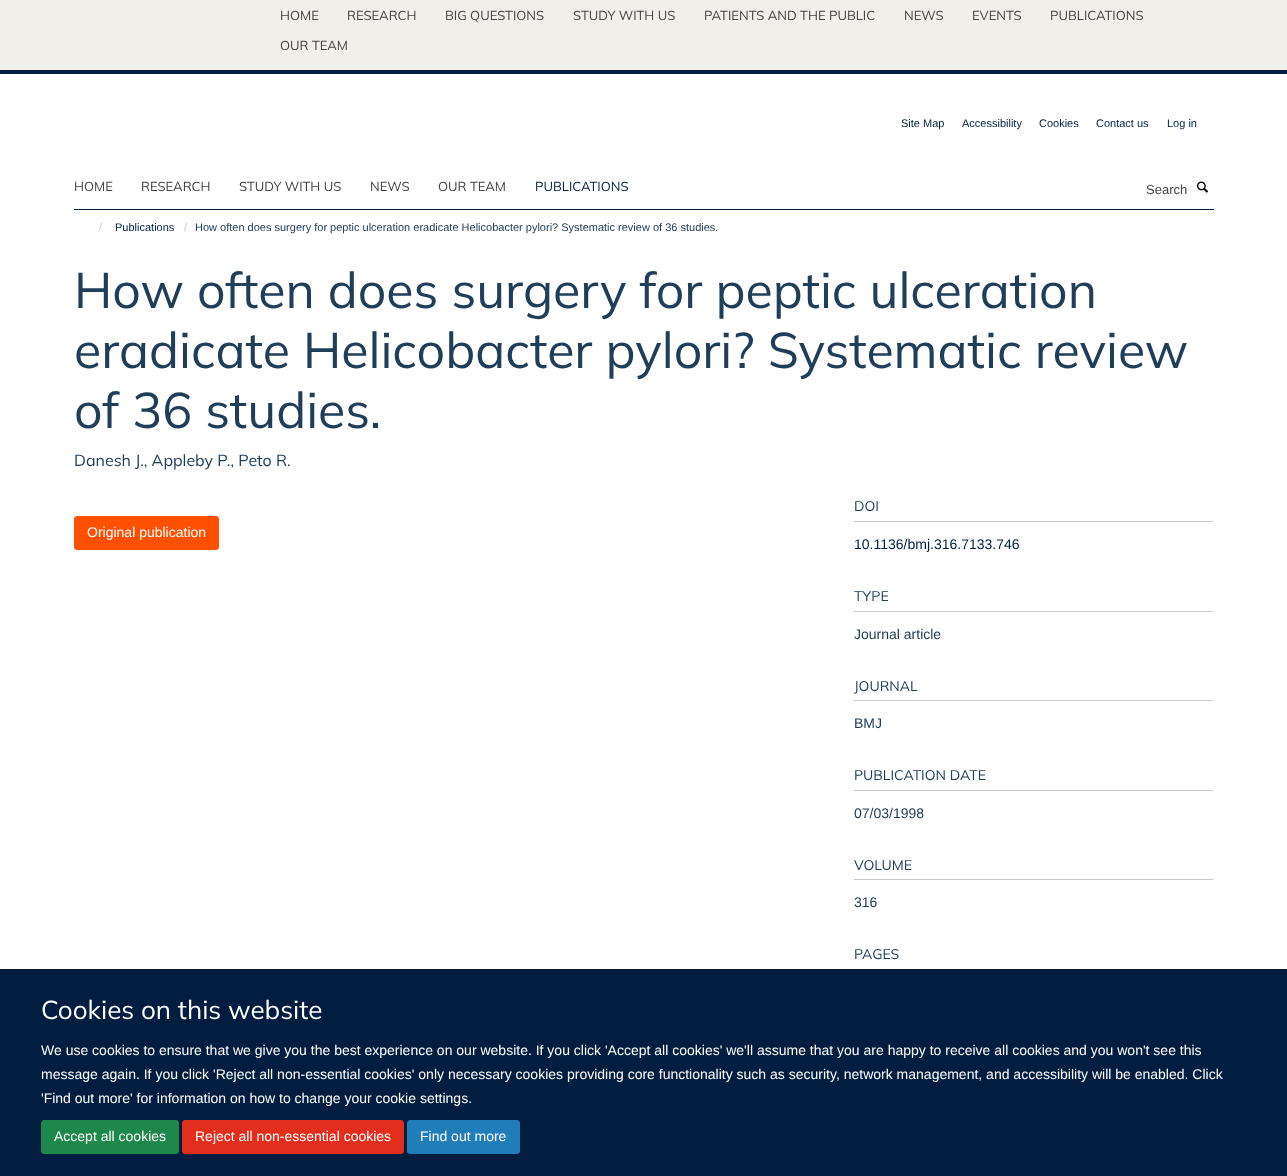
<svg xmlns="http://www.w3.org/2000/svg" width="1287" height="1176">
<rect width="100%" height="100%" fill="#fff"/>
<rect width="1287" height="70" fill="#f2efeb"/>
<rect y="70" width="1287" height="4" fill="#011e41"/>
<text x="280" y="20" style="font-family:Mulish;font-size:13px;fill:#444">HOME</text>
<text x="347" y="20" style="font-family:Mulish;font-size:13px;fill:#444">RESEARCH</text>
<text x="445" y="20" style="font-family:Mulish;font-size:13px;fill:#444">BIG QUESTIONS</text>
<text x="573" y="20" style="font-family:Mulish;font-size:13px;fill:#444">STUDY WITH US</text>
<text x="704" y="20" style="font-family:Mulish;font-size:13px;fill:#444">PATIENTS AND THE PUBLIC</text>
<text x="904" y="20" style="font-family:Mulish;font-size:13px;fill:#444">NEWS</text>
<text x="972" y="20" style="font-family:Mulish;font-size:13px;fill:#444">EVENTS</text>
<text x="1050" y="20" style="font-family:Mulish;font-size:13px;fill:#444">PUBLICATIONS</text>
<text x="280" y="50" style="font-family:Mulish;font-size:13px;fill:#444">OUR TEAM</text>
<text x="901" y="127" style="font-family:Liberation Sans;font-size:11px;fill:#011e41">Site Map</text>
<text x="962" y="127" style="font-family:Liberation Sans;font-size:11px;fill:#011e41">Accessibility</text>
<text x="1039" y="127" style="font-family:Liberation Sans;font-size:11px;fill:#011e41">Cookies</text>
<text x="1096" y="127" style="font-family:Liberation Sans;font-size:11px;fill:#011e41">Contact us</text>
<text x="1167" y="127" style="font-family:Liberation Sans;font-size:11px;fill:#011e41">Log in</text>
<rect x="74" y="209" width="1140" height="1" fill="#011e41"/>
<text x="74" y="191" style="font-family:Mulish;font-size:13px;fill:#444">HOME</text>
<text x="141" y="191" style="font-family:Mulish;font-size:13px;fill:#444">RESEARCH</text>
<text x="239" y="191" style="font-family:Mulish;font-size:13px;fill:#444">STUDY WITH US</text>
<text x="370" y="191" style="font-family:Mulish;font-size:13px;fill:#444">NEWS</text>
<text x="438" y="191" style="font-family:Mulish;font-size:13px;fill:#444">OUR TEAM</text>
<text x="535" y="191" style="font-family:Mulish;font-size:13px;fill:#011e41">PUBLICATIONS</text>
<text x="1146" y="194" style="font-family:Liberation Sans;font-size:13px;fill:#444">Search</text>
<image x="1197" y="181" width="11" height="12" href="media/1.png"/>
<text x="99" y="231" style="font-family:Liberation Sans;font-size:11px;fill:#ccc">/</text>
<text x="115" y="231" style="font-family:Liberation Sans;font-size:11px;fill:#011e41">Publications</text>
<text x="184" y="231" style="font-family:Liberation Sans;font-size:11px;fill:#ccc">/</text>
<text x="195" y="231" style="font-family:Liberation Sans;font-size:11px;fill:#1d3850">How often does surgery for peptic ulceration eradicate Helicobacter pylori? Systematic review of 36 studies.</text>
<text x="74" y="308" style="font-family:Mulish;font-size:50px;fill:#203e58">How often does surgery for peptic ulceration</text>
<text x="74" y="368" style="font-family:Mulish;font-size:50px;fill:#203e58">eradicate Helicobacter pylori? Systematic review</text>
<text x="74" y="428" style="font-family:Mulish;font-size:50px;fill:#203e58">of 36 studies.</text>
<text x="74" y="466" style="font-family:Mulish;font-size:16px;fill:#203e58">Danesh J., Appleby P., Peto R.</text>
<rect x="74.5" y="516.5" width="144" height="33" rx="2.5" fill="#fe5000" stroke="#fe5000"/>
<text x="87" y="537" style="font-family:Liberation Sans;font-size:14px;fill:#fff">Original publication</text>
<rect x="854" y="521" width="359" height="1" fill="#c6cacf"/>
<text x="854" y="511" style="font-family:Mulish;font-size:14px;fill:#203e58">DOI</text>
<text x="854" y="549" style="font-family:Liberation Sans;font-size:14px;fill:#011e41">10.1136/bmj.316.7133.746</text>
<rect x="854" y="611" width="359" height="1" fill="#c6cacf"/>
<text x="854" y="601" style="font-family:Mulish;font-size:14px;fill:#203e58">TYPE</text>
<text x="854" y="639" style="font-family:Liberation Sans;font-size:14px;fill:#1d3850">Journal article</text>
<rect x="854" y="700" width="359" height="1" fill="#c6cacf"/>
<text x="854" y="691" style="font-family:Mulish;font-size:14px;fill:#203e58">JOURNAL</text>
<text x="854" y="728" style="font-family:Liberation Sans;font-size:14px;fill:#1d3850">BMJ</text>
<rect x="854" y="790" width="359" height="1" fill="#c6cacf"/>
<text x="854" y="780" style="font-family:Mulish;font-size:14px;fill:#203e58">PUBLICATION DATE</text>
<text x="854" y="818" style="font-family:Liberation Sans;font-size:14px;fill:#1d3850">07/03/1998</text>
<rect x="854" y="879" width="359" height="1" fill="#c6cacf"/>
<text x="854" y="870" style="font-family:Mulish;font-size:14px;fill:#203e58">VOLUME</text>
<text x="854" y="907" style="font-family:Liberation Sans;font-size:14px;fill:#1d3850">316</text>
<text x="854" y="959" style="font-family:Mulish;font-size:14px;fill:#203e58">PAGES</text>
<rect y="969" width="1287" height="207" fill="#011e41"/>
<text x="41" y="1019" style="font-family:Mulish;font-size:26px;fill:#fff">Cookies on this website</text>
<text x="41" y="1055" style="font-family:Liberation Sans;font-size:14px;fill:#fff">We use cookies to ensure that we give you the best experience on our website. If you click 'Accept all cookies' we'll assume that you are happy to receive all cookies and you won't see this</text>
<text x="41" y="1079" style="font-family:Liberation Sans;font-size:14px;fill:#fff">message again. If you click 'Reject all non-essential cookies' only necessary cookies providing core functionality such as security, network management, and accessibility will be enabled. Click</text>
<text x="41" y="1103" style="font-family:Liberation Sans;font-size:14px;fill:#fff">'Find out more' for information on how to change your cookie settings.</text>
<rect x="41.5" y="1120.5" width="137" height="33" rx="2.5" fill="#1e874b" stroke="#1e874b"/>
<text x="54" y="1141" style="font-family:Liberation Sans;font-size:14px;fill:#fff">Accept all cookies</text>
<rect x="182.5" y="1120.5" width="221" height="33" rx="2.5" fill="#e22e1c" stroke="#e22e1c"/>
<text x="195" y="1141" style="font-family:Liberation Sans;font-size:14px;fill:#fff">Reject all non-essential cookies</text>
<rect x="407.5" y="1120.5" width="112" height="33" rx="2.5" fill="#217cba" stroke="#217cba"/>
<text x="420" y="1141" style="font-family:Liberation Sans;font-size:14px;fill:#fff">Find out more</text>
</svg>
